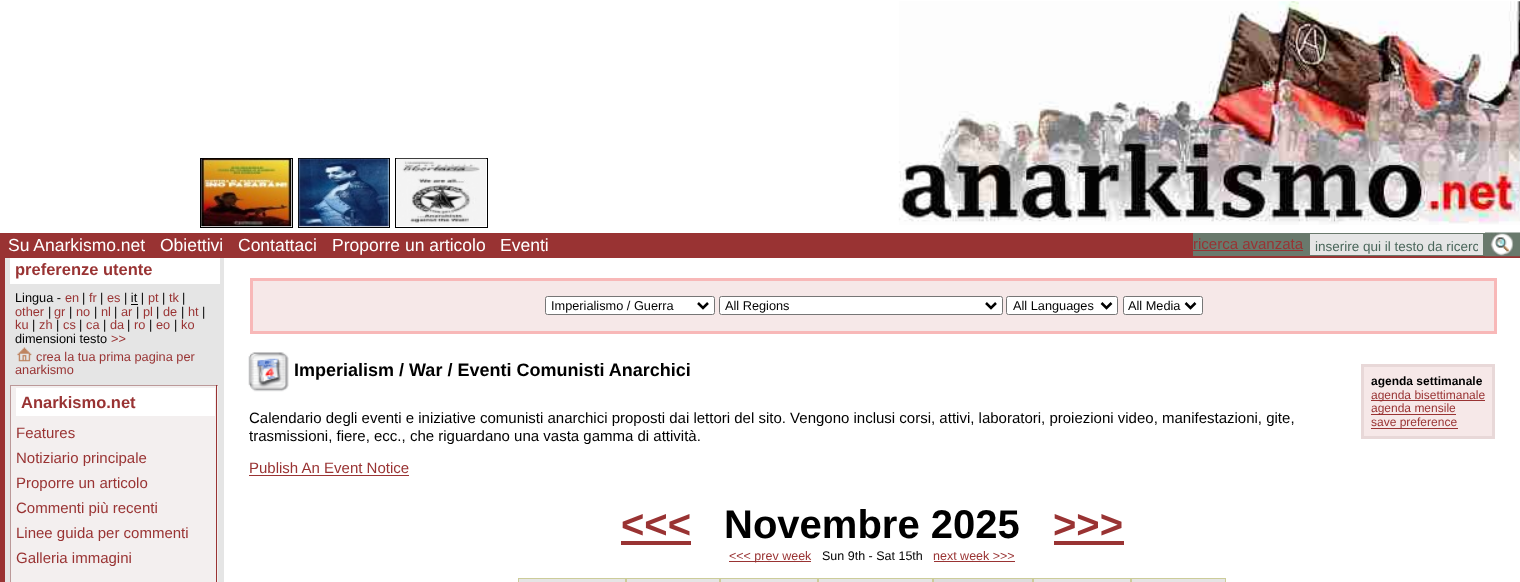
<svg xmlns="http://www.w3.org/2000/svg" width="1520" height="582">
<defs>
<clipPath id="clip1"><rect x="1315" y="239" width="163" height="15"/></clipPath>
</defs>
<rect width="100%" height="100%" fill="#fff"/>
<rect x="200.5" y="158.5" width="92" height="69" fill="none" stroke="#000"/>
<image x="201" y="158" width="91" height="69" href="media/1.png"/>
<rect x="298.5" y="158.5" width="91" height="69" fill="none" stroke="#000"/>
<image x="298" y="158" width="91" height="69" href="media/2.png"/>
<rect x="395.5" y="158.5" width="92" height="69" fill="none" stroke="#000"/>
<image x="396" y="158" width="91" height="68" href="media/3.png"/>
<image x="898" y="1" width="622" height="224" href="media/4.png"/>
<rect y="250" width="5" height="332" fill="#933"/>
<rect y="233" width="1520" height="25" fill="#933"/>
<text x="8" y="251" style="font-family:Liberation Sans;font-size:17.5px;fill:#fff">Su Anarkismo.net</text>
<text x="160" y="251" style="font-family:Liberation Sans;font-size:17.5px;fill:#fff">Obiettivi</text>
<text x="238" y="251" style="font-family:Liberation Sans;font-size:17.5px;fill:#fff">Contattaci</text>
<text x="332" y="251" style="font-family:Liberation Sans;font-size:17.5px;fill:#fff">Proporre un articolo</text>
<text x="500" y="251" style="font-family:Liberation Sans;font-size:17.5px;fill:#fff">Eventi</text>
<rect x="1193" y="233" width="292" height="23" fill="#69796c"/>
<text x="1193" y="249" style="font-family:Liberation Sans;font-size:15px;fill:#933">ricerca avanzata</text>
<rect x="1193" y="250" width="110" height="1" fill="#933"/>
<rect x="1310" y="234" width="173" height="21" fill="#e5e5e5"/>
<g clip-path="url(#clip1)">
<text x="1315" y="251" style="font-family:Liberation Sans;font-size:13.5px;fill:#4b675b">inserire qui il testo da ricerc</text>
</g>
<image x="1485" y="232" width="35" height="25" href="media/5.png"/>
<rect x="5" y="258" width="219" height="324" fill="#e5e5e5"/>
<rect x="10" y="258" width="210" height="26" fill="#fff"/>
<text x="15" y="275" style="font-family:Liberation Sans;font-size:16.5px;font-weight:bold;fill:#933">preferenze utente</text>
<text x="15" y="302" style="font-family:Liberation Sans;font-size:12.75px;fill:#000">Lingua -</text>
<text x="65" y="302" style="font-family:Liberation Sans;font-size:12.75px;fill:#933">en</text>
<text x="82" y="302" style="font-family:Liberation Sans;font-size:12.75px;fill:#000">|</text>
<text x="89" y="302" style="font-family:Liberation Sans;font-size:12.75px;fill:#933">fr</text>
<text x="100" y="302" style="font-family:Liberation Sans;font-size:12.75px;fill:#000">|</text>
<text x="107" y="302" style="font-family:Liberation Sans;font-size:12.75px;fill:#933">es</text>
<text x="124" y="302" style="font-family:Liberation Sans;font-size:12.75px;fill:#000">| it |</text>
<text x="148" y="302" style="font-family:Liberation Sans;font-size:12.75px;fill:#933">pt</text>
<text x="162" y="302" style="font-family:Liberation Sans;font-size:12.75px;fill:#000">|</text>
<text x="169" y="302" style="font-family:Liberation Sans;font-size:12.75px;fill:#933">tk</text>
<text x="182" y="302" style="font-family:Liberation Sans;font-size:12.75px;fill:#000">|</text>
<rect x="131" y="304" width="7" height="1" fill="#000"/>
<text x="15" y="316" style="font-family:Liberation Sans;font-size:12.75px;fill:#933">other</text>
<text x="48" y="316" style="font-family:Liberation Sans;font-size:12.75px;fill:#000">|</text>
<text x="54" y="316" style="font-family:Liberation Sans;font-size:12.75px;fill:#933">gr</text>
<text x="69" y="316" style="font-family:Liberation Sans;font-size:12.75px;fill:#000">|</text>
<text x="76" y="316" style="font-family:Liberation Sans;font-size:12.75px;fill:#933">no</text>
<text x="94" y="316" style="font-family:Liberation Sans;font-size:12.75px;fill:#000">|</text>
<text x="101" y="316" style="font-family:Liberation Sans;font-size:12.75px;fill:#933">nl</text>
<text x="114" y="316" style="font-family:Liberation Sans;font-size:12.75px;fill:#000">|</text>
<text x="121" y="316" style="font-family:Liberation Sans;font-size:12.75px;fill:#933">ar</text>
<text x="136" y="316" style="font-family:Liberation Sans;font-size:12.75px;fill:#000">|</text>
<text x="143" y="316" style="font-family:Liberation Sans;font-size:12.75px;fill:#933">pl</text>
<text x="156" y="316" style="font-family:Liberation Sans;font-size:12.75px;fill:#000">|</text>
<text x="163" y="316" style="font-family:Liberation Sans;font-size:12.75px;fill:#933">de</text>
<text x="181" y="316" style="font-family:Liberation Sans;font-size:12.75px;fill:#000">|</text>
<text x="188" y="316" style="font-family:Liberation Sans;font-size:12.75px;fill:#933">ht</text>
<text x="202" y="316" style="font-family:Liberation Sans;font-size:12.75px;fill:#000">|</text>
<text x="15" y="329" style="font-family:Liberation Sans;font-size:12.75px;fill:#933">ku</text>
<text x="32" y="329" style="font-family:Liberation Sans;font-size:12.75px;fill:#000">|</text>
<text x="39" y="329" style="font-family:Liberation Sans;font-size:12.75px;fill:#933">zh</text>
<text x="56" y="329" style="font-family:Liberation Sans;font-size:12.75px;fill:#000">|</text>
<text x="63" y="329" style="font-family:Liberation Sans;font-size:12.75px;fill:#933">cs</text>
<text x="79" y="329" style="font-family:Liberation Sans;font-size:12.75px;fill:#000">|</text>
<text x="86" y="329" style="font-family:Liberation Sans;font-size:12.75px;fill:#933">ca</text>
<text x="103" y="329" style="font-family:Liberation Sans;font-size:12.75px;fill:#000">|</text>
<text x="110" y="329" style="font-family:Liberation Sans;font-size:12.75px;fill:#933">da</text>
<text x="127" y="329" style="font-family:Liberation Sans;font-size:12.75px;fill:#000">|</text>
<text x="134" y="329" style="font-family:Liberation Sans;font-size:12.75px;fill:#933">ro</text>
<text x="149" y="329" style="font-family:Liberation Sans;font-size:12.75px;fill:#000">|</text>
<text x="156" y="329" style="font-family:Liberation Sans;font-size:12.75px;fill:#933">eo</text>
<text x="174" y="329" style="font-family:Liberation Sans;font-size:12.75px;fill:#000">|</text>
<text x="181" y="329" style="font-family:Liberation Sans;font-size:12.75px;fill:#933">ko</text>
<text x="15" y="343" style="font-family:Liberation Sans;font-size:12.75px;fill:#000">dimensioni testo</text>
<text x="111" y="343" style="font-family:Liberation Sans;font-size:12.75px;fill:#933">&gt;&gt;</text>
<image x="17" y="347" width="15" height="15" href="media/6.png"/>
<text x="36" y="361" style="font-family:Liberation Sans;font-size:12.75px;fill:#933">crea la tua prima pagina per</text>
<text x="15" y="374" style="font-family:Liberation Sans;font-size:12.75px;fill:#933">anarkismo</text>
<rect x="11" y="386" width="207" height="196" fill="#f3efef"/>
<rect x="10" y="385" width="208" height="1" fill="#b99"/>
<rect x="216" y="385" width="1" height="197" fill="#933"/>
<rect x="10" y="385" width="1" height="197" fill="#b99"/>
<rect x="16" y="388" width="199" height="28" fill="#fff"/>
<text x="21" y="408" style="font-family:Liberation Sans;font-size:16.5px;font-weight:bold;fill:#933">Anarkismo.net</text>
<text x="16" y="438" style="font-family:Liberation Sans;font-size:15px;fill:#933">Features</text>
<text x="16" y="463" style="font-family:Liberation Sans;font-size:15px;fill:#933">Notiziario principale</text>
<text x="16" y="488" style="font-family:Liberation Sans;font-size:15px;fill:#933">Proporre un articolo</text>
<text x="16" y="513" style="font-family:Liberation Sans;font-size:15px;fill:#933">Commenti più recenti</text>
<text x="16" y="538" style="font-family:Liberation Sans;font-size:15px;fill:#933">Linee guida per commenti</text>
<text x="16" y="563" style="font-family:Liberation Sans;font-size:15px;fill:#933">Galleria immagini</text>
<rect x="253" y="281" width="1241" height="50" fill="#f6e8e8"/>
<rect x="250" y="278" width="1246" height="3" fill="#f8b8b8"/>
<rect x="1494" y="278" width="3" height="56" fill="#f8b8b8"/>
<rect x="250" y="331" width="1246" height="3" fill="#f8b8b8"/>
<rect x="250" y="278" width="3" height="56" fill="#f8b8b8"/>
<rect x="545.5" y="296.5" width="169" height="18" rx="2" fill="#fff" stroke="#767676"/>
<path d="M698 303l5 5l5-5" fill="none" stroke="#000" stroke-width="2.5"/>
<text x="551" y="310" style="font-family:Liberation Sans;font-size:12.75px;fill:#000">Imperialismo / Guerra</text>
<rect x="719.5" y="296.5" width="283" height="18" rx="2" fill="#fff" stroke="#767676"/>
<path d="M986 303l5 5l5-5" fill="none" stroke="#000" stroke-width="2.5"/>
<text x="725" y="310" style="font-family:Liberation Sans;font-size:12.75px;fill:#000">All Regions</text>
<rect x="1006.5" y="296.5" width="111" height="18" rx="2" fill="#fff" stroke="#767676"/>
<path d="M1101.5 303l5 5l5-5" fill="none" stroke="#000" stroke-width="2.5"/>
<text x="1013" y="310" style="font-family:Liberation Sans;font-size:12.75px;fill:#000">All Languages</text>
<rect x="1123.5" y="296.5" width="79" height="18" rx="2" fill="#fff" stroke="#767676"/>
<path d="M1185.5 303l5 5l5-5" fill="none" stroke="#000" stroke-width="2.5"/>
<text x="1128" y="310" style="font-family:Liberation Sans;font-size:12.75px;fill:#000">All Media</text>
<image x="248" y="352" width="41" height="40" href="media/7.png"/>
<text x="294" y="376" style="font-family:Liberation Sans;font-size:18px;font-weight:bold;fill:#000">Imperialism / War / Eventi Comunisti Anarchici</text>
<text x="249" y="423" style="font-family:Liberation Sans;font-size:15px;fill:#000">Calendario degli eventi e iniziative comunisti anarchici proposti dai lettori del sito. Vengono inclusi corsi, attivi, laboratori, proiezioni video, manifestazioni, gite,</text>
<text x="249" y="441" style="font-family:Liberation Sans;font-size:15px;fill:#000">trasmissioni, fiere, ecc., che riguardano una vasta gamma di attività.</text>
<rect x="1362.5" y="365.5" width="131" height="72" fill="#f6e8e8" stroke="#e8d8d8" stroke-width="3"/>
<text x="1371" y="385" style="font-family:Liberation Sans;font-size:12px;font-weight:bold;fill:#000">agenda settimanale</text>
<rect x="1371" y="400" width="114" height="1" fill="#933"/>
<text x="1371" y="399" style="font-family:Liberation Sans;font-size:12px;fill:#933">agenda bisettimanale</text>
<rect x="1371" y="414" width="85" height="1" fill="#933"/>
<text x="1371" y="412" style="font-family:Liberation Sans;font-size:12px;fill:#933">agenda mensile</text>
<rect x="1371" y="428" width="87" height="1" fill="#933"/>
<text x="1371" y="426" style="font-family:Liberation Sans;font-size:12px;fill:#933">save preference</text>
<text x="249" y="473" style="font-family:Liberation Sans;font-size:15px;fill:#933">Publish An Event Notice</text>
<rect x="249" y="475" width="160" height="1" fill="#933"/>
<text x="621" y="538" style="font-family:Liberation Sans;font-size:40px;font-weight:bold;fill:#933">&lt;&lt;&lt;</text>
<rect x="621" y="541" width="70" height="4" fill="#933"/>
<text x="724" y="538" style="font-family:Liberation Sans;font-size:40px;font-weight:bold;fill:#000">Novembre 2025</text>
<text x="1053" y="538" style="font-family:Liberation Sans;font-size:40px;font-weight:bold;fill:#933">&gt;&gt;&gt;</text>
<rect x="1054" y="541" width="70" height="4" fill="#933"/>
<rect x="729" y="561" width="82" height="1" fill="#933"/>
<text x="729" y="560" style="font-family:Liberation Sans;font-size:12.5px;fill:#933">&lt;&lt;&lt; prev week</text>
<text x="822" y="560" style="font-family:Liberation Sans;font-size:12.5px;fill:#000">Sun 9th - Sat 15th</text>
<text x="933" y="560" style="font-family:Liberation Sans;font-size:12.5px;fill:#933">next week &gt;&gt;&gt;</text>
<rect x="934" y="561" width="81" height="1" fill="#933"/>
<rect x="518.5" y="578.5" width="107" height="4" fill="#e5e5e5" stroke="#cc9"/>
<rect x="626.5" y="578.5" width="93" height="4" fill="#e5e5e5" stroke="#cc9"/>
<rect x="720.5" y="578.5" width="97" height="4" fill="#e5e5e5" stroke="#cc9"/>
<rect x="818.5" y="578.5" width="114" height="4" fill="#e5e5e5" stroke="#cc9"/>
<rect x="933.5" y="578.5" width="99" height="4" fill="#ddd" stroke="#cc9"/>
<rect x="1033.5" y="578.5" width="97" height="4" fill="#e5e5e5" stroke="#cc9"/>
<rect x="1131.5" y="578.5" width="94" height="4" fill="#e5e5e5" stroke="#cc9"/>
</svg>
